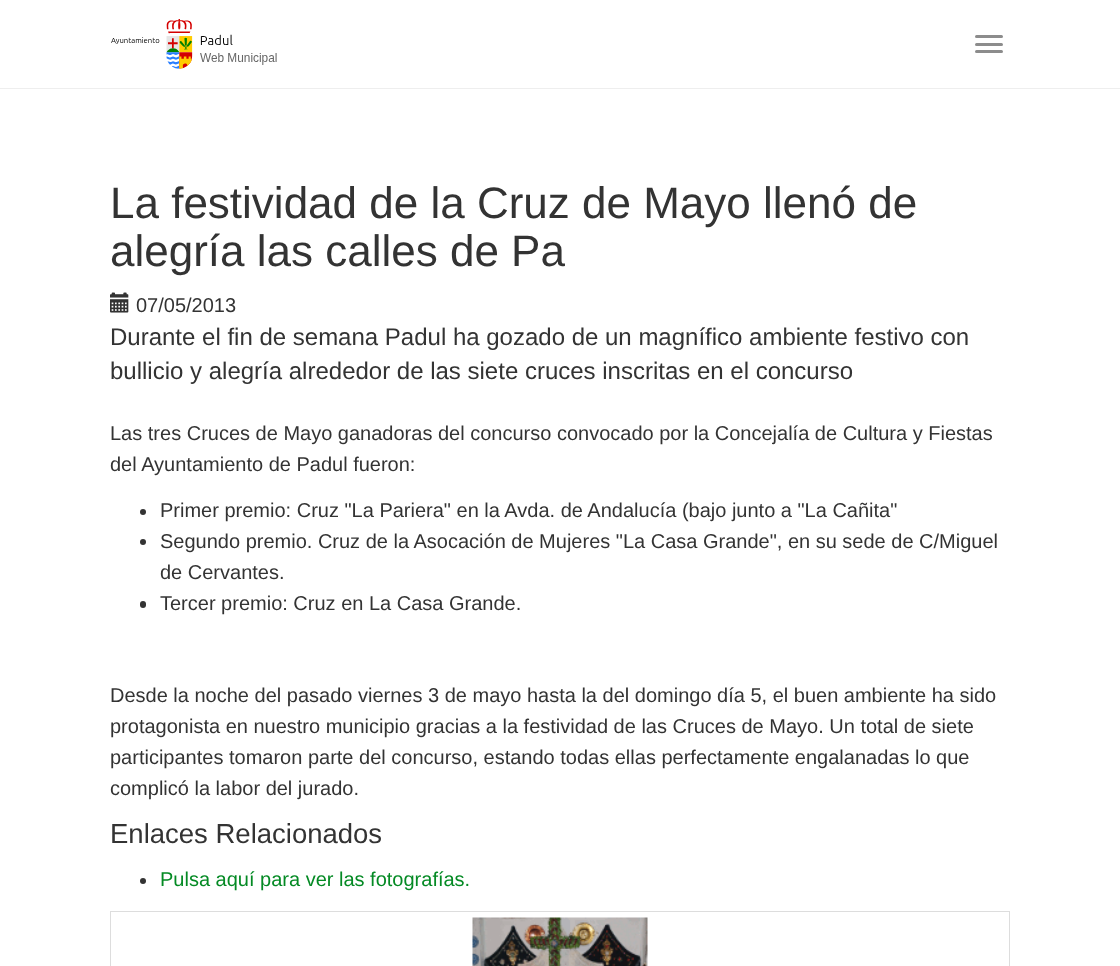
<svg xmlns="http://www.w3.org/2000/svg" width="1120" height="966">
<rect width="100%" height="100%" fill="#fff"/>
<rect y="88" width="1120" height="1" fill="#eee"/>
<image x="111" y="19" width="166" height="50" href="media/1.png"/>
<rect x="975" y="35" width="28" height="3" rx="1.5" fill="#8c8c8c"/>
<rect x="975" y="43" width="28" height="3" rx="1.5" fill="#8c8c8c"/>
<rect x="975" y="50" width="28" height="3" rx="1.5" fill="#8c8c8c"/>
<text x="110" y="218" style="font-family:Liberation Sans;font-size:44px;fill:#333">La festividad de la Cruz de Mayo llenó de</text>
<text x="110" y="266" style="font-family:Liberation Sans;font-size:44px;fill:#333">alegría las calles de Pa</text>
<image x="110" y="292" width="19" height="21" href="media/2.png"/>
<text x="136" y="312" style="font-family:Liberation Sans;font-size:20px;fill:#333">07/05/2013</text>
<text x="110" y="345" style="font-family:Liberation Sans;font-size:24px;fill:#333">Durante el fin de semana Padul ha gozado de un magnífico ambiente festivo con</text>
<text x="110" y="379" style="font-family:Liberation Sans;font-size:24px;fill:#333">bullicio y alegría alrededor de las siete cruces inscritas en el concurso</text>
<text x="110" y="440" style="font-family:Liberation Sans;font-size:20px;fill:#333">Las tres Cruces de Mayo ganadoras del concurso convocado por la Concejalía de Cultura y Fiestas</text>
<text x="110" y="471" style="font-family:Liberation Sans;font-size:20px;fill:#333">del Ayuntamiento de Padul fueron:</text>
<circle cx="143" cy="512" r="3" fill="#333"/>
<text x="160" y="517" style="font-family:Liberation Sans;font-size:20px;fill:#333">Primer premio: Cruz "La Pariera" en la Avda. de Andalucía (bajo junto a "La Cañita"</text>
<circle cx="143" cy="542" r="3" fill="#333"/>
<text x="160" y="548" style="font-family:Liberation Sans;font-size:20px;fill:#333">Segundo premio. Cruz de la Asocación de Mujeres "La Casa Grande", en su sede de C/Miguel</text>
<text x="160" y="579" style="font-family:Liberation Sans;font-size:20px;fill:#333">de Cervantes.</text>
<rect x="140" y="601" width="6" height="7" rx="3" fill="#333"/>
<text x="160" y="610" style="font-family:Liberation Sans;font-size:20px;fill:#333">Tercer premio: Cruz en La Casa Grande.</text>
<text x="110" y="702" style="font-family:Liberation Sans;font-size:20px;fill:#333">Desde la noche del pasado viernes 3 de mayo hasta la del domingo día 5, el buen ambiente ha sido</text>
<text x="110" y="733" style="font-family:Liberation Sans;font-size:20px;fill:#333">protagonista en nuestro municipio gracias a la festividad de las Cruces de Mayo. Un total de siete</text>
<text x="110" y="764" style="font-family:Liberation Sans;font-size:20px;fill:#333">participantes tomaron parte del concurso, estando todas ellas perfectamente engalanadas lo que</text>
<text x="110" y="795" style="font-family:Liberation Sans;font-size:20px;fill:#333">complicó la labor del jurado.</text>
<text x="110" y="843" style="font-family:Liberation Sans;font-size:27.5px;fill:#333">Enlaces Relacionados</text>
<circle cx="143" cy="881" r="3" fill="#333"/>
<text x="160" y="886" style="font-family:Liberation Sans;font-size:20px;fill:#048a24">Pulsa aquí para ver las fotografías.</text>
<rect x="110.5" y="911.5" width="899" height="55" fill="none" stroke="#ddd"/>
<image x="472" y="917" width="176" height="49" href="media/3.png"/>
</svg>
